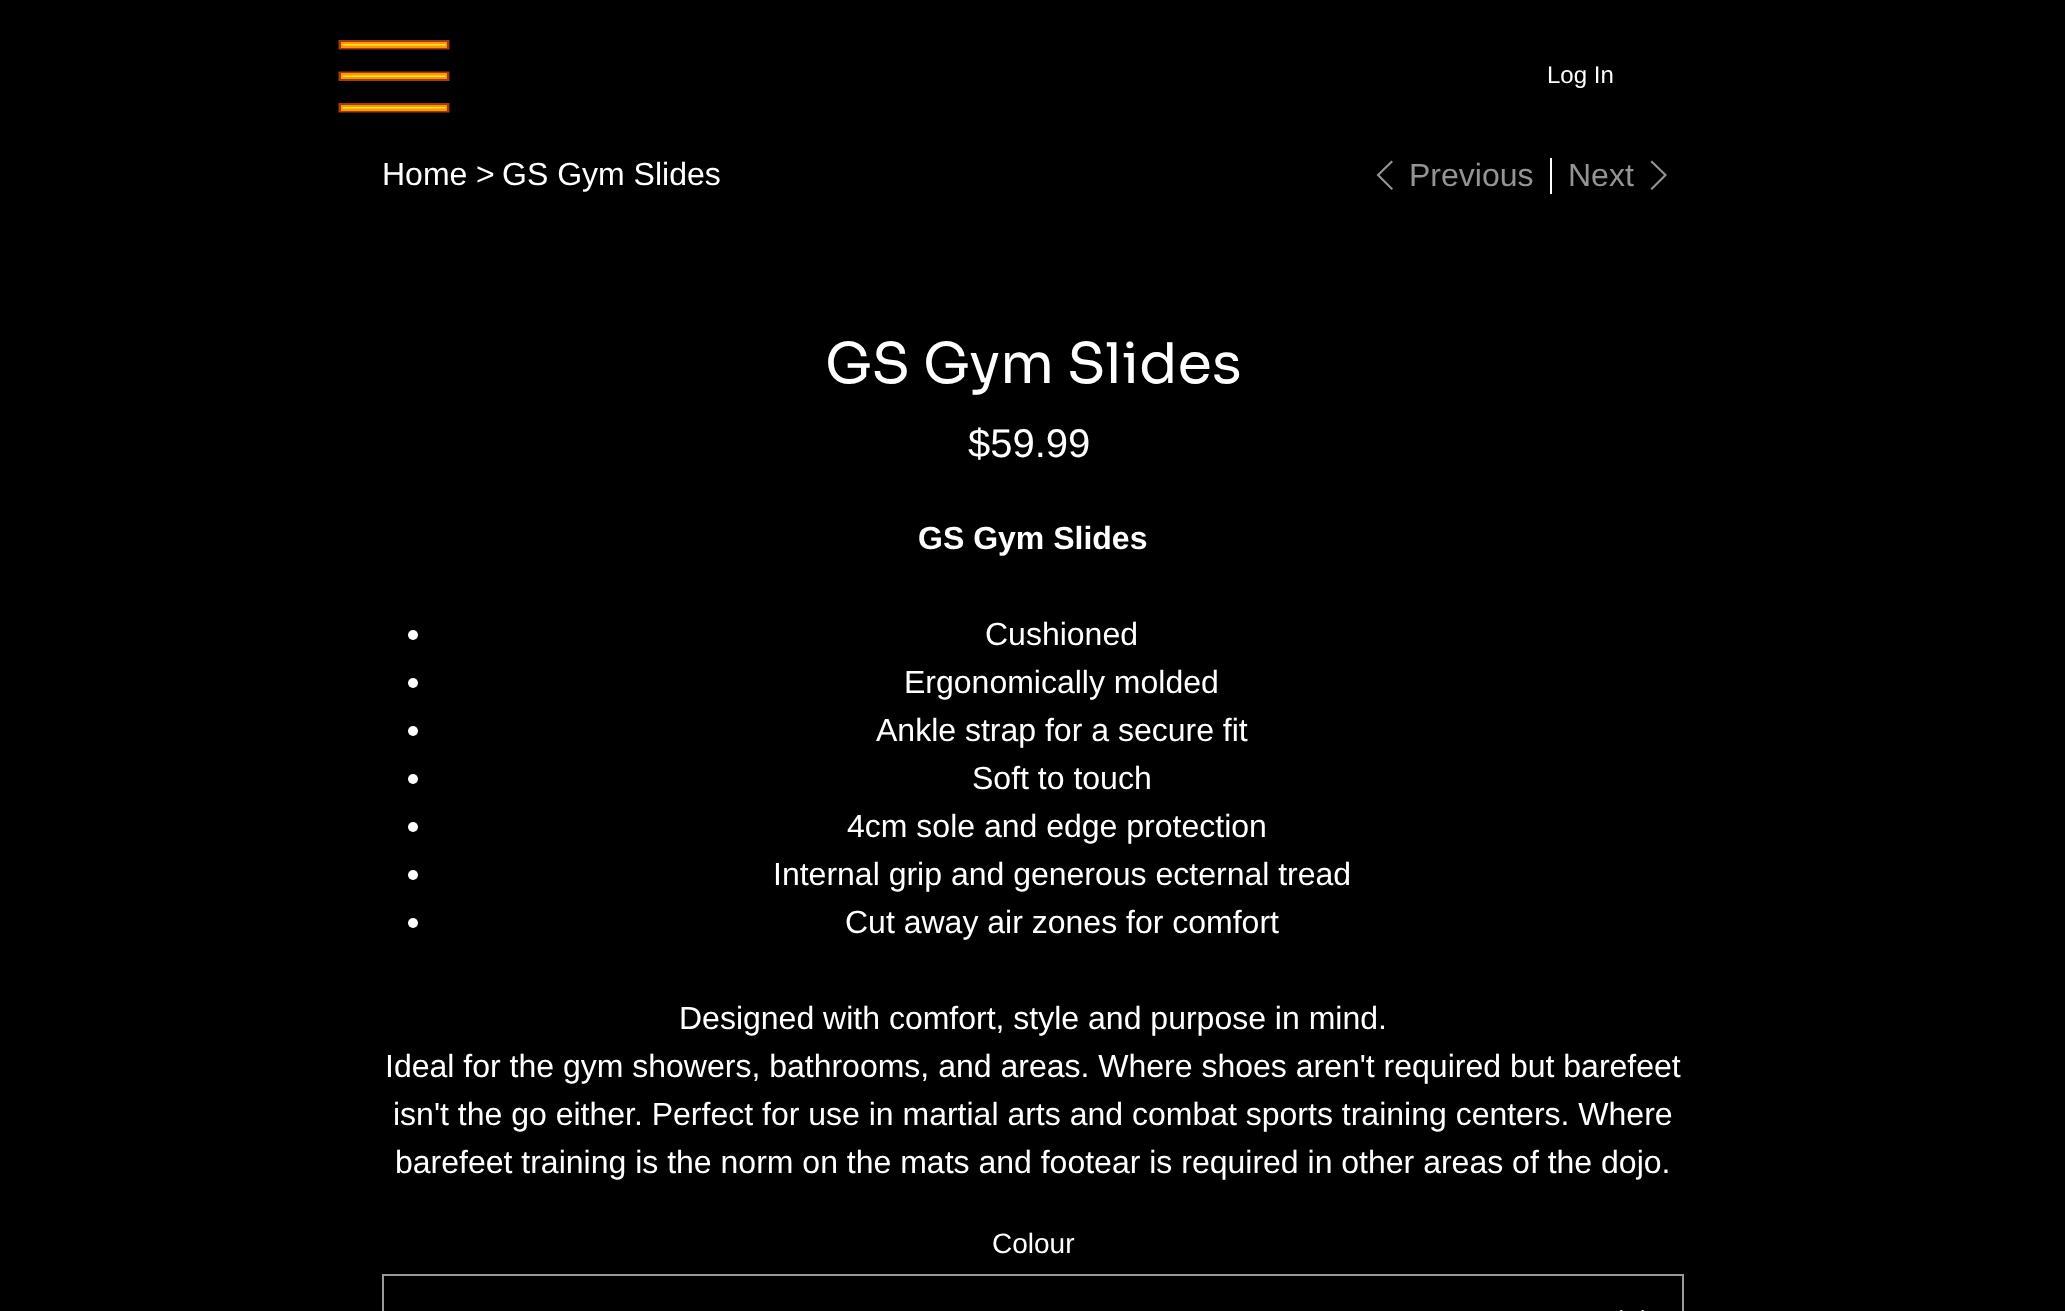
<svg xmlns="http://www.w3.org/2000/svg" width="2065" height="1311">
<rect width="100%" height="100%" fill="#000"/>
<rect x="341" y="42" width="106" height="6" fill="#fff200"/>
<path d="M447.5 42v5.5h-107v-5.5z" fill="none" stroke="#ff5e1aa3" stroke-width="4"/>
<rect x="341" y="73" width="106" height="6" fill="#fff200"/>
<path d="M447.5 73.5v5.5h-107v-5.5z" fill="none" stroke="#ff5e1aa3" stroke-width="4"/>
<rect x="341" y="105" width="106" height="6" fill="#fff200"/>
<path d="M447.5 105v5.5h-107v-5.5z" fill="none" stroke="#ff5e1aa3" stroke-width="4"/>
<text x="1547" y="83" style="font-family:Liberation Sans;font-size:24px;fill:#fff">Log In</text>
<text x="382" y="185" style="font-family:Liberation Sans;font-size:32px;fill:#fff">Home</text>
<text x="476" y="185" style="font-family:Liberation Sans;font-size:32px;fill:#fff">&gt;</text>
<text x="502" y="185" style="font-family:Liberation Sans;font-size:32px;fill:#fff">GS Gym Slides</text>
<path d="M1391.5 160.5l1.5 1.5l-13.5 13l13.5 13.5l-1.5 1.5l-15-15z" fill="#949494" fill-rule="evenodd"/>
<text x="1409" y="186" style="font-family:Liberation Sans;font-size:32px;fill:#949494">Previous</text>
<rect x="1550" y="158" width="2" height="36" fill="#fff"/>
<text x="1568" y="186" style="font-family:Liberation Sans;font-size:32px;fill:#949494">Next</text>
<path d="M1652 190l-1.5-1.5l13.5-13.5l-13.5-13l1.5-1.5l15 14.5z" fill="#949494" fill-rule="evenodd"/>
<text x="825" y="383" style="font-family:Sora;font-size:56px;fill:#fff">GS Gym Slides</text>
<text x="968" y="457" style="font-family:Liberation Sans;font-size:40px;fill:#fff">$59.99</text>
<text x="918" y="549" style="font-family:Liberation Sans;font-size:32px;font-weight:bold;fill:#fff">GS Gym Slides</text>
<circle cx="413" cy="635" r="5" fill="#fff"/>
<text x="985" y="645" style="font-family:Liberation Sans;font-size:32px;fill:#fff">Cushioned</text>
<circle cx="413" cy="683" r="5" fill="#fff"/>
<text x="904" y="693" style="font-family:Liberation Sans;font-size:32px;fill:#fff">Ergonomically molded</text>
<circle cx="413" cy="731" r="5" fill="#fff"/>
<text x="876" y="741" style="font-family:Liberation Sans;font-size:32px;fill:#fff">Ankle strap for a secure fit</text>
<circle cx="413" cy="779" r="5" fill="#fff"/>
<text x="972" y="789" style="font-family:Liberation Sans;font-size:32px;fill:#fff">Soft to touch</text>
<circle cx="413" cy="827" r="5" fill="#fff"/>
<text x="847" y="837" style="font-family:Liberation Sans;font-size:32px;fill:#fff">4cm sole and edge protection</text>
<circle cx="413" cy="875" r="5" fill="#fff"/>
<text x="773" y="885" style="font-family:Liberation Sans;font-size:32px;fill:#fff">Internal grip and generous ecternal tread</text>
<circle cx="413" cy="923" r="5" fill="#fff"/>
<text x="845" y="933" style="font-family:Liberation Sans;font-size:32px;fill:#fff">Cut away air zones for comfort</text>
<text x="679" y="1029" style="font-family:Liberation Sans;font-size:32px;fill:#fff">Designed with comfort, style and purpose in mind.</text>
<text x="385" y="1077" style="font-family:Liberation Sans;font-size:32px;fill:#fff">Ideal for the gym showers, bathrooms, and areas. Where shoes aren't required but barefeet</text>
<text x="393" y="1125" style="font-family:Liberation Sans;font-size:32px;fill:#fff">isn't the go either. Perfect for use in martial arts and combat sports training centers. Where</text>
<text x="395" y="1173" style="font-family:Liberation Sans;font-size:32px;fill:#fff">barefeet training is the norm on the mats and footear is required in other areas of the dojo.</text>
<text x="992" y="1253" style="font-family:Liberation Sans;font-size:28px;fill:#fff">Colour</text>
<rect x="383" y="1275" width="1300" height="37" fill="none" stroke="#999" stroke-width="2"/>
<image x="1620" y="1310" width="24" height="1" href="media/1.png"/>
</svg>
